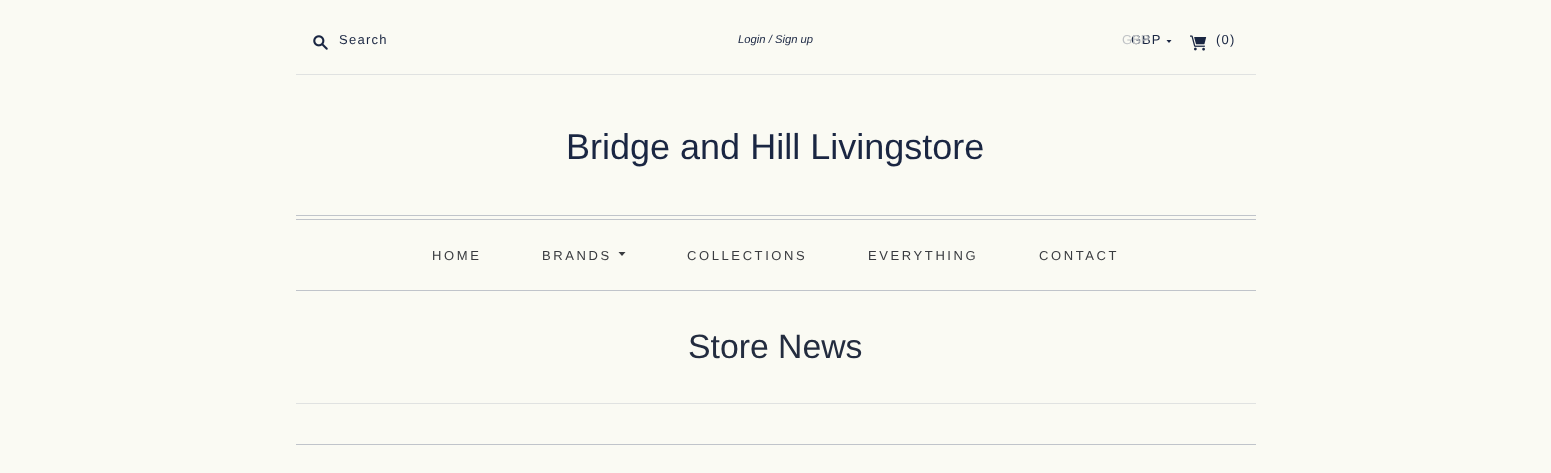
<svg xmlns="http://www.w3.org/2000/svg" width="1551" height="473">
<rect width="100%" height="100%" fill="#fafaf3"/>
<rect x="296" y="74" width="960" height="1" fill="#e0e2e1"/>
<image x="313" y="35" width="15" height="15" href="media/1.png"/>
<text x="339" y="44" style="font-family:Liberation Sans;font-size:13px;letter-spacing:1.25px;fill:#1a2642">Search</text>
<text x="738" y="43" style="font-family:Liberation Sans;font-size:11.25px;font-style:italic;fill:#1a2642">Login / Sign up</text>
<text x="1131" y="44" style="font-family:Liberation Sans;font-size:13px;letter-spacing:1px;fill:#1a2642">GBP</text>
<text x="1122" y="44" style="font-family:Liberation Sans;font-size:13px;fill:#bfc2c5">GBP</text>
<path d="M1166.5 40h5l-2.5 3" fill="#1a2642" fill-rule="evenodd"/>
<image x="1190" y="35" width="17" height="16" href="media/2.png"/>
<text x="1216" y="44" style="font-family:Liberation Sans;font-size:13px;letter-spacing:1.25px;fill:#1a2642">(0)</text>
<text x="566" y="159" style="font-family:Liberation Sans;font-size:36px;fill:#1a2642">Bridge and Hill Livingstore</text>
<rect x="296" y="219" width="960" height="1" fill="#c0c4ca"/>
<rect x="296" y="215" width="960" height="1" fill="#c0c4ca"/>
<text x="432" y="260" style="font-family:Liberation Sans;font-size:13px;letter-spacing:2.6px;fill:#393b3f">HOME</text>
<text x="542" y="260" style="font-family:Liberation Sans;font-size:13px;letter-spacing:2.6px;fill:#393b3f">BRANDS</text>
<path d="M618.5 252h7l-3.5 4" fill="#393b3f" fill-rule="evenodd"/>
<text x="687" y="260" style="font-family:Liberation Sans;font-size:13px;letter-spacing:2.6px;fill:#393b3f">COLLECTIONS</text>
<text x="868" y="260" style="font-family:Liberation Sans;font-size:13px;letter-spacing:2.6px;fill:#393b3f">EVERYTHING</text>
<text x="1039" y="260" style="font-family:Liberation Sans;font-size:13px;letter-spacing:2.6px;fill:#393b3f">CONTACT</text>
<rect x="296" y="290" width="960" height="1" fill="#c0c4ca"/>
<rect x="296" y="403" width="960" height="1" fill="#e0e2e1"/>
<text x="688" y="358" style="font-family:Liberation Sans;font-size:33.75px;fill:#232c3f">Store News</text>
<rect x="296" y="444" width="960" height="1" fill="#c0c4ca"/>
</svg>
